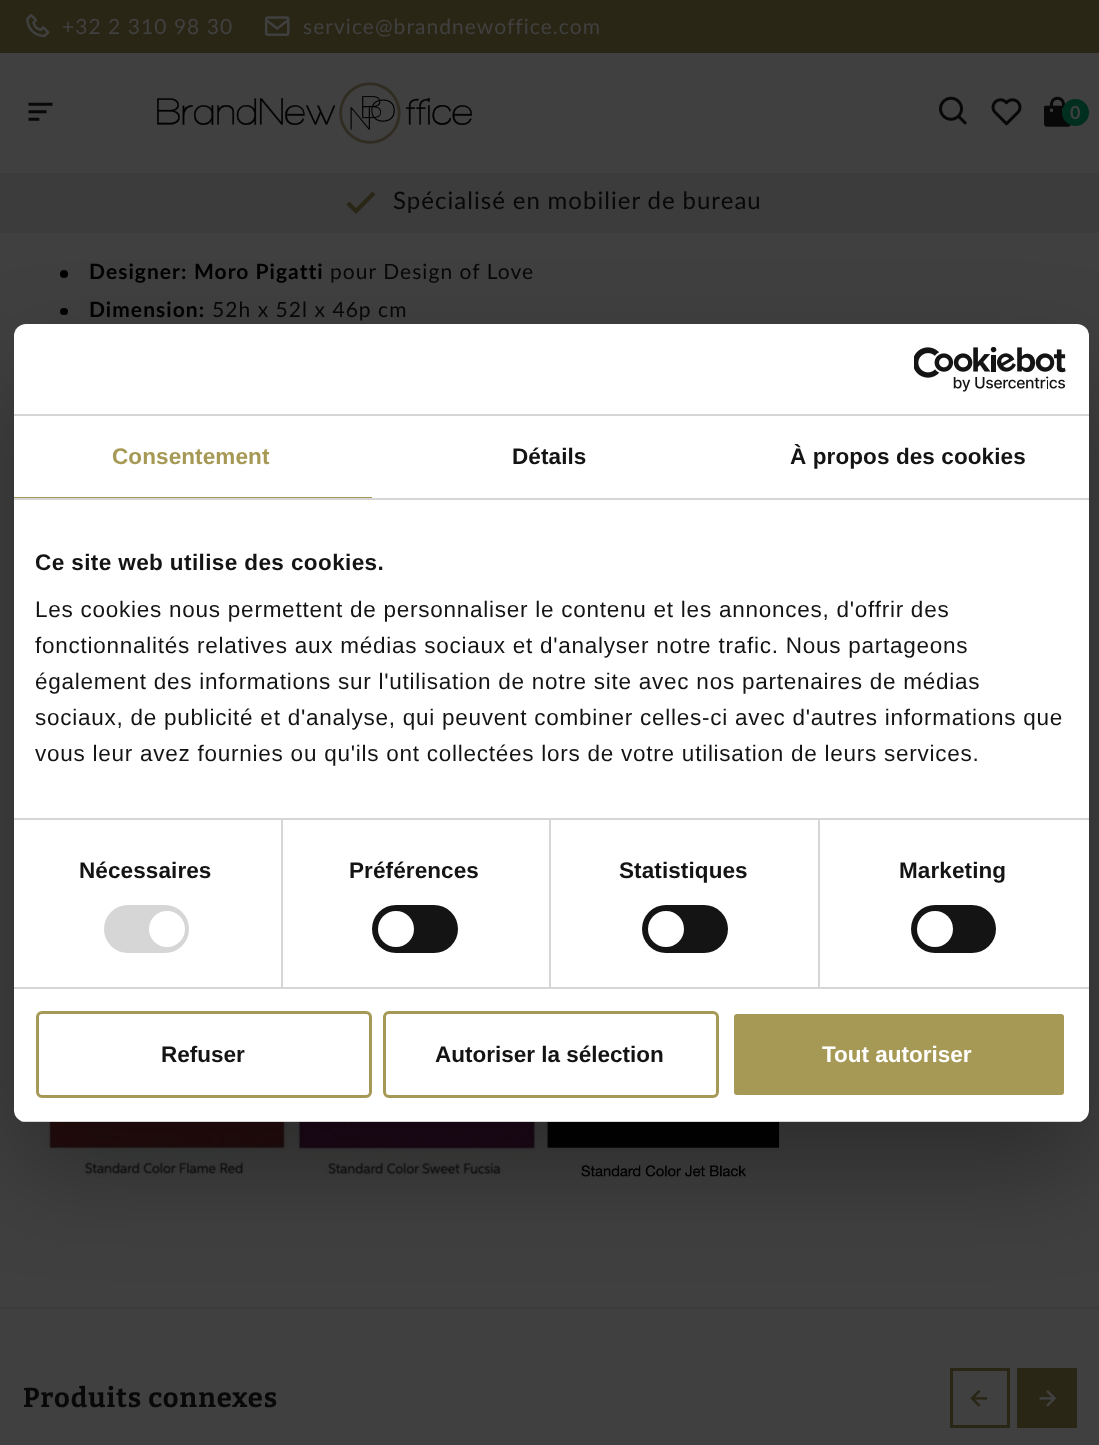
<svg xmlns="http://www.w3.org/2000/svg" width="1099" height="1445">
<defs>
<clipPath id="clip1"><rect x="14" y="324" width="1075" height="798" rx="12"/></clipPath>
</defs>
<rect width="100%" height="100%" fill="#404040"/>
<rect width="1099" height="53" fill="#2a2615"/>
<image x="26" y="13" width="24" height="25" href="media/1.png"/>
<text x="62" y="34" style="font-family:Lato;font-size:21px;letter-spacing:1.05px;fill:#404040">+32 2 310 98 30</text>
<image x="264" y="16" width="26" height="20" href="media/2.png"/>
<text x="303" y="34" style="font-family:Lato;font-size:21px;letter-spacing:1.05px;fill:#404040">service@brandnewoffice.com</text>
<image x="28" y="102" width="25" height="19" href="media/3.png"/>
<image x="157" y="82" width="315" height="62" href="media/4.png"/>
<image x="939" y="96" width="28" height="29" href="media/5.png"/>
<image x="991" y="98" width="31" height="28" href="media/6.png"/>
<image x="1044" y="96" width="27" height="31" href="media/7.png"/>
<circle cx="1075.5" cy="112.5" r="13.5" fill="#002e1f"/>
<text x="1070" y="119" style="font-family:Lato;font-size:18px;font-weight:bold;letter-spacing:1.05px;fill:#404040">0</text>
<rect y="173" width="1099" height="60" fill="#3c3c3c"/>
<path d="M356 208l-6.5-6.5l-3 3l9.5 9.5l19.5-19.5l-3-3z" fill="#2a2615"/>
<text x="393" y="209" word-spacing="-0.5" style="font-family:Lato;font-size:24px;letter-spacing:1.05px;fill:#080808">Spécialisé en mobilier de bureau</text>
<circle cx="64" cy="274" r="4" fill="#000"/>
<text x="89" y="279" style="font-family:Lato;font-size:21px;font-weight:bold;letter-spacing:1.05px;fill:#000">Designer:</text>
<text x="194" y="279" style="font-family:Lato;font-size:21px;font-weight:bold;letter-spacing:1.05px;fill:#000">Moro Pigatti</text>
<text x="330" y="279" style="font-family:Lato;font-size:21px;letter-spacing:1.05px;fill:#080808">pour Design of Love</text>
<rect x="60" y="308" width="8" height="7" rx="3.5" fill="#000"/>
<text x="89" y="317" style="font-family:Lato;font-size:21px;font-weight:bold;letter-spacing:1.05px;fill:#000">Dimension:</text>
<text x="212" y="317" style="font-family:Lato;font-size:21px;letter-spacing:1.05px;fill:#080808">52h x 52l x 46p cm</text>
<image x="46" y="1122" width="990" height="56" href="media/8.png"/>
<rect y="1307" width="1099" height="2" fill="#3c3c3c"/>
<text x="23" y="1407" style="font-family:Bitter;font-size:27.25px;font-weight:bold;letter-spacing:1.05px;fill:#080808">Produits connexes</text>
<rect x="951.5" y="1369.5" width="57" height="57" fill="none" stroke="#2a2615" stroke-width="3"/>
<image x="970" y="1390" width="17" height="17" href="media/9.png"/>
<rect x="1017" y="1368" width="60" height="60" fill="#2a2615"/>
<image x="1039" y="1390" width="18" height="17" href="media/10.png"/>
<rect x="14" y="372" width="1075" height="798" rx="12" fill="#0000004d" filter="blur(51px)"/>
<rect x="14" y="324" width="1075" height="798" rx="12" fill="#fff"/>
<rect x="14" y="414" width="1075" height="2" fill="#d6d6d6"/>
<image x="914" y="347" width="152" height="45" href="media/11.png"/>
<rect x="14" y="498" width="1075" height="2" fill="#d6d6d6"/>
<rect x="14" y="497" width="358" height="1" fill="#a69955"/>
<text x="112" y="464" style="font-family:Liberation Sans;font-size:22.5px;font-weight:bold;letter-spacing:0.1px;fill:#a69955">Consentement</text>
<text x="512" y="464" style="font-family:Liberation Sans;font-size:22.5px;font-weight:bold;letter-spacing:0.1px;fill:#141414">Détails</text>
<text x="790" y="464" style="font-family:Liberation Sans;font-size:22.5px;font-weight:bold;letter-spacing:0.1px;fill:#141414">À propos des cookies</text>
<rect x="281" y="819" width="2" height="168" fill="#d6d6d6"/>
<rect x="549" y="819" width="2" height="168" fill="#d6d6d6"/>
<rect x="818" y="819" width="2" height="168" fill="#d6d6d6"/>
<rect x="14" y="818" width="1075" height="2" fill="#d6d6d6"/>
<text x="35" y="570" style="font-family:Liberation Sans;font-size:22.5px;font-weight:bold;letter-spacing:0.4px;fill:#141414">Ce site web utilise des cookies.</text>
<text x="35" y="617" style="font-family:Liberation Sans;font-size:22.5px;letter-spacing:0.75px;fill:#141414">Les cookies nous permettent de personnaliser le contenu et les annonces, d'offrir des</text>
<text x="35" y="653" style="font-family:Liberation Sans;font-size:22.5px;letter-spacing:0.75px;fill:#141414">fonctionnalités relatives aux médias sociaux et d'analyser notre trafic. Nous partageons</text>
<text x="35" y="689" style="font-family:Liberation Sans;font-size:22.5px;letter-spacing:0.75px;fill:#141414">également des informations sur l'utilisation de notre site avec nos partenaires de médias</text>
<text x="35" y="725" style="font-family:Liberation Sans;font-size:22.5px;letter-spacing:0.75px;fill:#141414">sociaux, de publicité et d'analyse, qui peuvent combiner celles-ci avec d'autres informations que</text>
<text x="35" y="761" style="font-family:Liberation Sans;font-size:22.5px;letter-spacing:0.75px;fill:#141414">vous leur avez fournies ou qu'ils ont collectées lors de votre utilisation de leurs services.</text>
<rect x="14" y="987" width="1075" height="2" fill="#d6d6d6"/>
<text x="79" y="878" style="font-family:Liberation Sans;font-size:22.5px;font-weight:bold;letter-spacing:0.1px;fill:#141414">Nécessaires</text>
<rect x="104" y="905" width="85" height="48" rx="24" fill="#d6d6d6"/>
<circle cx="167" cy="929" r="18" fill="#fff"/>
<text x="349" y="878" style="font-family:Liberation Sans;font-size:22.5px;font-weight:bold;letter-spacing:0.1px;fill:#141414">Préférences</text>
<rect x="372" y="905" width="86" height="48" rx="24" fill="#141414"/>
<circle cx="396" cy="929" r="18" fill="#fff"/>
<text x="619" y="878" style="font-family:Liberation Sans;font-size:22.5px;font-weight:bold;letter-spacing:0.1px;fill:#141414">Statistiques</text>
<rect x="642" y="905" width="86" height="48" rx="24" fill="#141414"/>
<circle cx="666" cy="929" r="18" fill="#fff"/>
<text x="899" y="878" style="font-family:Liberation Sans;font-size:22.5px;font-weight:bold;letter-spacing:0.1px;fill:#141414">Marketing</text>
<rect x="911" y="905" width="85" height="48" rx="24" fill="#141414"/>
<circle cx="935" cy="929" r="18" fill="#fff"/>
<g clip-path="url(#clip1)">
<rect x="14" y="1121" width="1075" height="1" fill="#d6d6d6"/>
</g>
<rect x="37.5" y="1012.5" width="333" height="84" rx="4.5" fill="none" stroke="#a69955" stroke-width="3"/>
<text x="161" y="1062" style="font-family:Liberation Sans;font-size:22.5px;font-weight:bold;fill:#141414">Refuser</text>
<rect x="384.5" y="1012.5" width="333" height="84" rx="4.5" fill="none" stroke="#a69955" stroke-width="3"/>
<text x="435" y="1062" style="font-family:Liberation Sans;font-size:22.5px;font-weight:bold;fill:#141414">Autoriser la sélection</text>
<rect x="732.5" y="1012.5" width="333" height="84" rx="4.5" fill="#a69955" stroke="#fff" stroke-width="3"/>
<text x="822" y="1062" style="font-family:Liberation Sans;font-size:22.5px;font-weight:bold;fill:#fff">Tout autoriser</text>
</svg>
